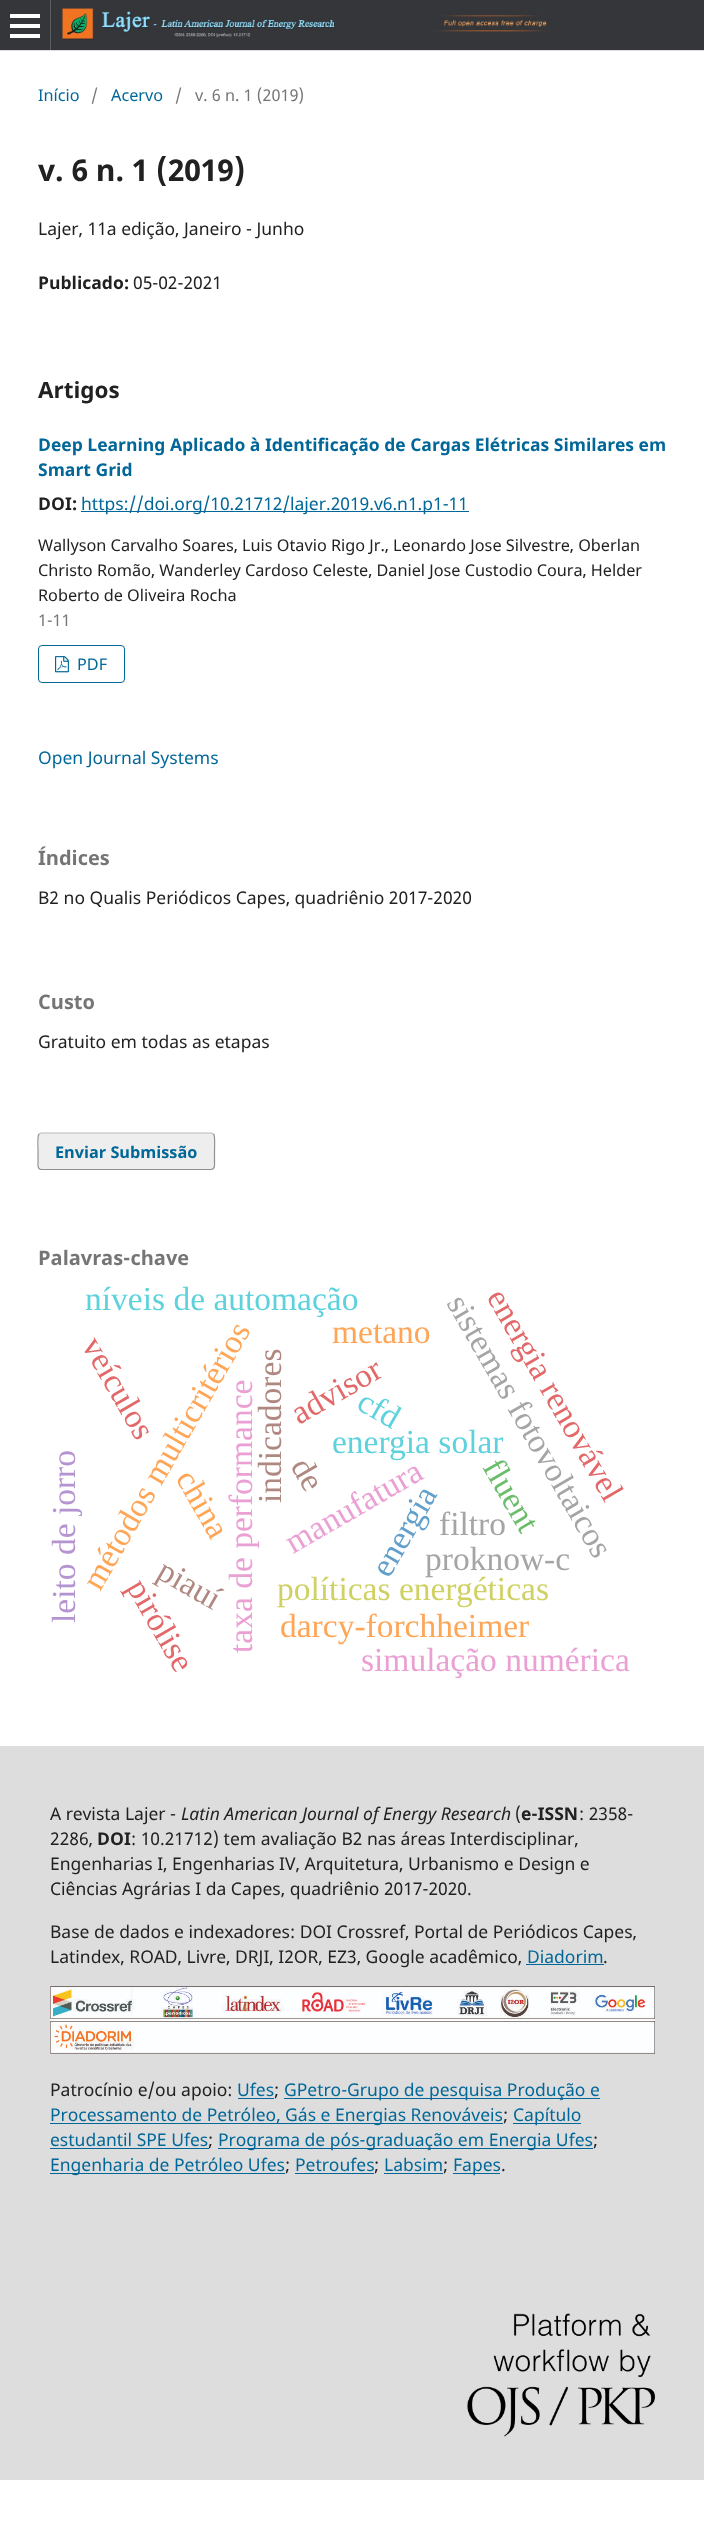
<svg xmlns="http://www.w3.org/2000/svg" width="704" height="2524">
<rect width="100%" height="100%" fill="#fff"/>
<rect width="704" height="50" fill="#35363a"/>
<rect y="50" width="704" height="1" fill="#ddd"/>
<rect x="50" width="1" height="50" fill="#5d5e61"/>
<rect x="10" y="34" width="30" height="4" fill="#fff"/>
<rect x="10" y="14" width="30" height="4" fill="#fff"/>
<rect x="10" y="24" width="30" height="4" fill="#fff"/>
<image x="62" y="6" width="488" height="36" href="media/1.png"/>
<text x="38" y="101" style="font-family:Noto Sans;font-size:16.25px;fill:#006798">Início</text>
<text x="91" y="101" style="font-family:Noto Sans;font-size:16.25px;fill:#757575">/</text>
<text x="111" y="101" style="font-family:Noto Sans;font-size:16.25px;fill:#006798">Acervo</text>
<text x="175" y="101" style="font-family:Noto Sans;font-size:16.25px;fill:#757575">/</text>
<text x="195" y="101" style="font-family:Noto Sans;font-size:16.25px;fill:#757575">v. 6 n. 1 (2019)</text>
<text x="38" y="181" style="font-family:Noto Sans;font-size:30px;font-weight:bold;fill:#212121">v. 6 n. 1 (2019)</text>
<text x="38" y="235" style="font-family:Noto Sans;font-size:17.5px;fill:#212121">Lajer, 11a edição, Janeiro - Junho</text>
<text x="38" y="289" style="font-family:Noto Sans;font-size:17.5px;font-weight:bold;fill:#212121">Publicado:</text>
<text x="133" y="289" style="font-family:Noto Sans;font-size:17.5px;fill:#212121">05-02-2021</text>
<text x="38" y="398" style="font-family:Noto Sans;font-size:22.5px;font-weight:bold;fill:#212121">Artigos</text>
<text x="38" y="451" style="font-family:Noto Sans;font-size:17.5px;font-weight:bold;fill:#006798">Deep Learning Aplicado à Identificação de Cargas Elétricas Similares em</text>
<text x="38" y="476" style="font-family:Noto Sans;font-size:17.5px;font-weight:bold;fill:#006798">Smart Grid</text>
<text x="38" y="510" style="font-family:Noto Sans;font-size:17.5px;font-weight:bold;fill:#212121">DOI:</text>
<rect x="81" y="511" width="388" height="1" fill="#006798"/>
<text x="81" y="510" style="font-family:Noto Sans;font-size:17.5px;fill:#006798">https://doi.org/10.21712/lajer.2019.v6.n1.p1-11</text>
<text x="38" y="551" style="font-family:Noto Sans;font-size:16.25px;fill:#212121">Wallyson Carvalho Soares, Luis Otavio Rigo Jr., Leonardo Jose Silvestre, Oberlan</text>
<text x="38" y="576" style="font-family:Noto Sans;font-size:16.25px;fill:#212121">Christo Romão, Wanderley Cardoso Celeste, Daniel Jose Custodio Coura, Helder</text>
<text x="38" y="601" style="font-family:Noto Sans;font-size:16.25px;fill:#212121">Roberto de Oliveira Rocha</text>
<text x="38" y="626" style="font-family:Noto Sans;font-size:16.25px;fill:#757575">1-11</text>
<rect x="38.5" y="645.5" width="86" height="37" rx="3.5" fill="none" stroke="#006798"/>
<image x="55" y="656" width="14" height="17" href="media/2.png"/>
<text x="77" y="670" style="font-family:Noto Sans;font-size:16.25px;fill:#006798">PDF</text>
<text x="38" y="764" style="font-family:Noto Sans;font-size:17.5px;fill:#006798">Open Journal Systems</text>
<text x="38" y="865" style="font-family:Noto Sans;font-size:20px;font-weight:bold;fill:#757575">Índices</text>
<text x="38" y="904" style="font-family:Noto Sans;font-size:17.5px;fill:#212121">B2 no Qualis Periódicos Capes, quadriênio 2017-2020</text>
<text x="38" y="1009" style="font-family:Noto Sans;font-size:20px;font-weight:bold;fill:#757575">Custo</text>
<text x="38" y="1048" style="font-family:Noto Sans;font-size:17.5px;fill:#212121">Gratuito em todas as etapas</text>
<rect x="38" y="1133" width="177" height="37" rx="4" fill="#eee"/>
<path d="M39 1134l2-1h170l2.5 1" fill="none" stroke="#bbb" stroke-width="1.2"/>
<path d="M213.5 1134c2 2 1 14 1 17v10c0 2.5 1 8.5-3.5 8.5h-170c-4 0-3-6-3-8.5v-10c0-3-1-15 1-17" fill="none" stroke="#00000066" stroke-width="1.2"/>
<text x="55" y="1158" style="font-family:Noto Sans;font-size:16.25px;font-weight:bold;fill:#006798">Enviar Submissão</text>
<text x="38" y="1265" style="font-family:Noto Sans;font-size:20px;font-weight:bold;fill:#757575">Palavras-chave</text>
<text x="85" y="1310" style="font-family:Liberation Serif;font-size:33.5px;fill:#5dd2dd">níveis de automação</text>
<text x="332" y="1453" style="font-family:Liberation Serif;font-size:33.5px;fill:#5dd2dd">energia solar</text>
<text x="446" y="1303" transform="rotate(60 446 1303)" style="font-family:Liberation Serif;font-size:33.5px;fill:#a5a5a5">sistemas fotovoltaicos</text>
<text x="486" y="1297" transform="rotate(60 486 1297)" style="font-family:Liberation Serif;font-size:33.5px;fill:#e26869">energia renovável</text>
<text x="252" y="1653" transform="rotate(-90 252 1653)" style="font-family:Liberation Serif;font-size:33.5px;fill:#eba0d4">taxa de performance</text>
<text x="100" y="1592" transform="rotate(-60 100 1592)" style="font-family:Liberation Serif;font-size:33.5px;fill:#ffa556">métodos multicritérios</text>
<text x="332" y="1343" style="font-family:Liberation Serif;font-size:33.5px;fill:#ffa556">metano</text>
<text x="81" y="1345" transform="rotate(60 81 1345)" style="font-family:Liberation Serif;font-size:33.5px;fill:#e26869">veículos</text>
<text x="281" y="1503" transform="rotate(-90 281 1503)" style="font-family:Liberation Serif;font-size:33.5px;fill:#af8981">indicadores</text>
<text x="355" y="1408" transform="rotate(30 355 1408)" style="font-family:Liberation Serif;font-size:33.5px;fill:#5dd2dd">cfd</text>
<text x="299" y="1425" transform="rotate(-30 299 1425)" style="font-family:Liberation Serif;font-size:33.5px;fill:#e26869">advisor</text>
<text x="75" y="1623" transform="rotate(-90 75 1623)" style="font-family:Liberation Serif;font-size:33.5px;fill:#b495d1">leito de jorro</text>
<text x="293" y="1554" transform="rotate(-30 293 1554)" style="font-family:Liberation Serif;font-size:33.5px;fill:#eba0d4">manufatura</text>
<text x="290" y="1466" transform="rotate(60 290 1466)" style="font-family:Liberation Serif;font-size:33.5px;fill:#af8981">de</text>
<text x="439" y="1535" style="font-family:Liberation Serif;font-size:33.5px;fill:#a5a5a5">filtro</text>
<text x="482" y="1467" transform="rotate(60 482 1467)" style="font-family:Liberation Serif;font-size:33.5px;fill:#6bbd6b">fluent</text>
<text x="175" y="1478" transform="rotate(60 175 1478)" style="font-family:Liberation Serif;font-size:33.5px;fill:#ffa556">china</text>
<text x="389" y="1579" transform="rotate(-60 389 1579)" style="font-family:Liberation Serif;font-size:33.5px;fill:#62a0cb">energia</text>
<text x="155" y="1577" transform="rotate(30 155 1577)" style="font-family:Liberation Serif;font-size:33.5px;fill:#af8981">piauí</text>
<text x="425" y="1570" style="font-family:Liberation Serif;font-size:33.5px;fill:#a5a5a5">proknow-c</text>
<text x="126" y="1587" transform="rotate(60 126 1587)" style="font-family:Liberation Serif;font-size:33.5px;fill:#e26869">pirólise</text>
<text x="277" y="1600" style="font-family:Liberation Serif;font-size:33.5px;fill:#d0d164">políticas energéticas</text>
<text x="280" y="1637" style="font-family:Liberation Serif;font-size:33.5px;fill:#ffa556">darcy-forchheimer</text>
<text x="361" y="1671" style="font-family:Liberation Serif;font-size:33.5px;fill:#eba0d4">simulação numérica</text>
<rect y="1746" width="704" height="734" fill="#ddd"/>
<text x="50" y="1820" style="font-family:Noto Sans;font-size:17.5px;fill:#212121">A revista Lajer -</text>
<text x="181" y="1820" style="font-family:Noto Sans;font-size:17.5px;font-style:italic;fill:#212121">Latin American Journal of Energy Research</text>
<text x="515" y="1820" style="font-family:Noto Sans;font-size:17.5px;fill:#212121">(</text>
<text x="521" y="1820" style="font-family:Noto Sans;font-size:17.5px;font-weight:bold;fill:#212121">e-ISSN</text>
<text x="579" y="1820" style="font-family:Noto Sans;font-size:17.5px;fill:#212121">: 2358-</text>
<text x="50" y="1845" style="font-family:Noto Sans;font-size:17.5px;fill:#212121">2286,</text>
<text x="97" y="1845" style="font-family:Noto Sans;font-size:17.5px;font-weight:bold;fill:#212121">DOI</text>
<text x="131" y="1845" style="font-family:Noto Sans;font-size:17.5px;fill:#212121">: 10.21712) tem avaliação B2 nas áreas Interdisciplinar,</text>
<text x="50" y="1870" style="font-family:Noto Sans;font-size:17.5px;fill:#212121">Engenharias I, Engenharias IV, Arquitetura, Urbanismo e Design e</text>
<text x="50" y="1895" style="font-family:Noto Sans;font-size:17.5px;fill:#212121">Ciências Agrárias I da Capes, quadriênio 2017-2020.</text>
<text x="50" y="1938" style="font-family:Noto Sans;font-size:17.5px;fill:#212121">Base de dados e indexadores: DOI Crossref, Portal de Periódicos Capes,</text>
<text x="50" y="1963" style="font-family:Noto Sans;font-size:17.5px;fill:#212121">Latindex, ROAD, Livre, DRJI, I2OR, EZ3, Google acadêmico,</text>
<text x="527" y="1963" style="font-family:Noto Sans;font-size:17.5px;fill:#006798">Diadorim</text>
<rect x="526" y="1964" width="78" height="1" fill="#006798"/>
<text x="603" y="1963" style="font-family:Noto Sans;font-size:17.5px;fill:#212121">.</text>
<image x="50" y="1986" width="605" height="68" href="media/3.png"/>
<text x="50" y="2096" style="font-family:Noto Sans;font-size:17.5px;fill:#212121">Patrocínio e/ou apoio:</text>
<text x="237" y="2096" style="font-family:Noto Sans;font-size:17.5px;fill:#006798">Ufes</text>
<rect x="238" y="2098" width="36" height="1" fill="#006798"/>
<text x="274" y="2096" style="font-family:Noto Sans;font-size:17.5px;fill:#212121">;</text>
<rect x="284" y="2098" width="316" height="1" fill="#006798"/>
<text x="284" y="2096" style="font-family:Noto Sans;font-size:17.5px;fill:#006798">GPetro-Grupo de pesquisa Produção e</text>
<rect x="50" y="2123" width="453" height="1" fill="#006798"/>
<text x="50" y="2121" style="font-family:Noto Sans;font-size:17.5px;fill:#006798">Processamento de Petróleo, Gás e Energias Renováveis</text>
<text x="503" y="2121" style="font-family:Noto Sans;font-size:17.5px;fill:#212121">;</text>
<rect x="513" y="2123" width="68" height="1" fill="#006798"/>
<text x="513" y="2121" style="font-family:Noto Sans;font-size:17.5px;fill:#006798">Capítulo</text>
<text x="50" y="2146" style="font-family:Noto Sans;font-size:17.5px;fill:#006798">estudantil SPE Ufes</text>
<rect x="50" y="2148" width="159" height="1" fill="#006798"/>
<text x="208" y="2146" style="font-family:Noto Sans;font-size:17.5px;fill:#212121">;</text>
<rect x="218" y="2148" width="375" height="1" fill="#006798"/>
<text x="218" y="2146" style="font-family:Noto Sans;font-size:17.5px;fill:#006798">Programa de pós-graduação em Energia Ufes</text>
<text x="593" y="2146" style="font-family:Noto Sans;font-size:17.5px;fill:#212121">;</text>
<rect x="50" y="2173" width="235" height="1" fill="#006798"/>
<text x="50" y="2171" style="font-family:Noto Sans;font-size:17.5px;fill:#006798">Engenharia de Petróleo Ufes</text>
<text x="285" y="2171" style="font-family:Noto Sans;font-size:17.5px;fill:#212121">;</text>
<text x="295" y="2171" style="font-family:Noto Sans;font-size:17.5px;fill:#006798">Petroufes</text>
<rect x="295" y="2173" width="79" height="1" fill="#006798"/>
<text x="374" y="2171" style="font-family:Noto Sans;font-size:17.5px;fill:#212121">;</text>
<text x="384" y="2171" style="font-family:Noto Sans;font-size:17.5px;fill:#006798">Labsim</text>
<rect x="384" y="2173" width="59" height="1" fill="#006798"/>
<text x="443" y="2171" style="font-family:Noto Sans;font-size:17.5px;fill:#212121">;</text>
<rect x="453" y="2173" width="47" height="1" fill="#006798"/>
<text x="453" y="2171" style="font-family:Noto Sans;font-size:17.5px;fill:#006798">Fapes</text>
<text x="501" y="2171" style="font-family:Noto Sans;font-size:17.5px;fill:#212121">.</text>
<image x="467" y="2313" width="188" height="124" href="media/4.png"/>
</svg>
